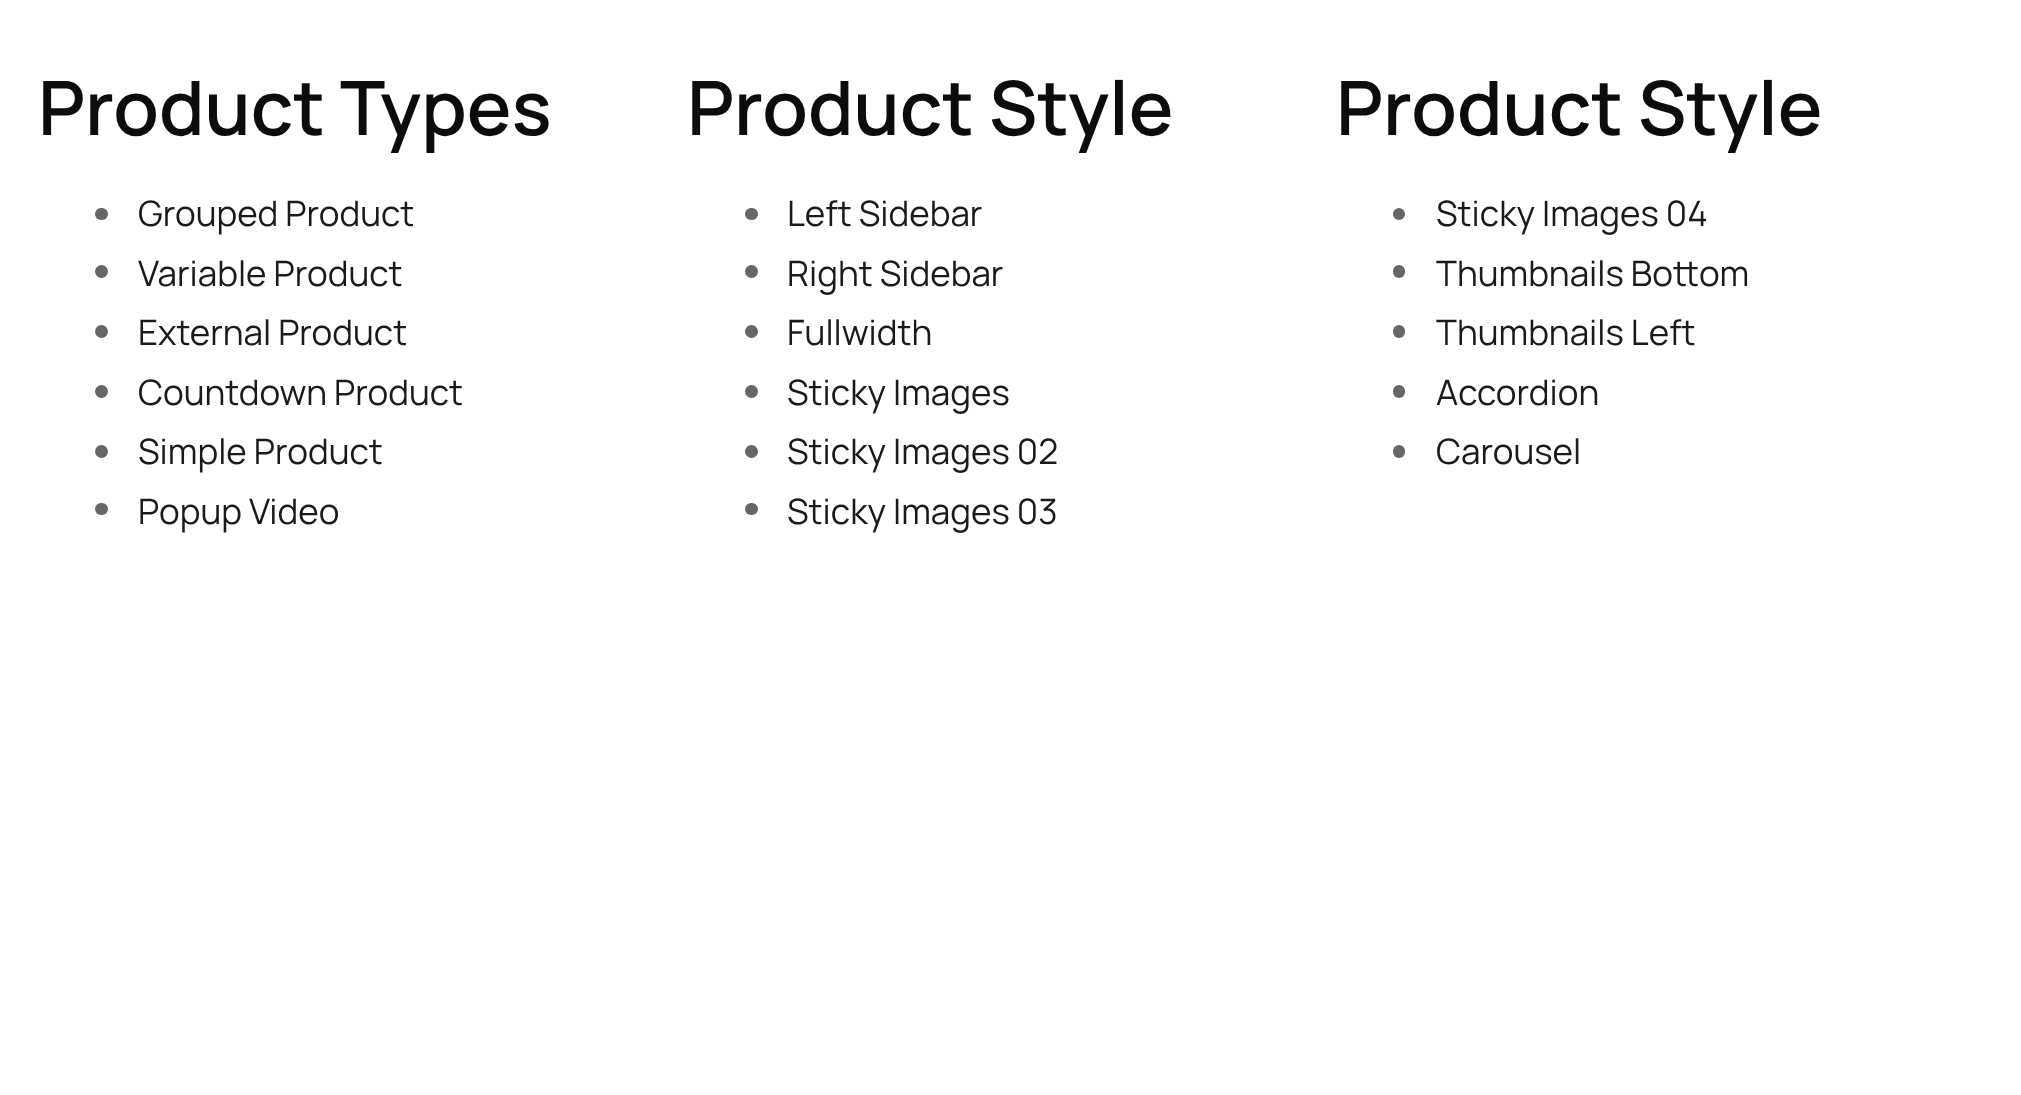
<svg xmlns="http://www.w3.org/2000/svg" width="2021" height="1095">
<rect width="100%" height="100%" fill="#fff"/>
<text x="38" y="135" style="font-family:Manrope;font-size:75px;font-weight:600;fill:#0c0c0c">Product Types</text>
<rect x="95" y="208" width="13" height="12" rx="6" fill="#666"/>
<text x="138" y="226" style="font-family:Manrope;font-size:35px;fill:#1a1a1a">Grouped Product</text>
<circle cx="101.5" cy="271.5" r="6.5" fill="#666"/>
<text x="138" y="286" style="font-family:Manrope;font-size:35px;fill:#1a1a1a">Variable Product</text>
<circle cx="101.5" cy="331.5" r="6.5" fill="#666"/>
<text x="138" y="345" style="font-family:Manrope;font-size:35px;fill:#1a1a1a">External Product</text>
<circle cx="101.5" cy="391.5" r="6.5" fill="#666"/>
<text x="138" y="405" style="font-family:Manrope;font-size:35px;fill:#1a1a1a">Countdown Product</text>
<circle cx="101.5" cy="451.5" r="6.5" fill="#666"/>
<text x="138" y="464" style="font-family:Manrope;font-size:35px;fill:#1a1a1a">Simple Product</text>
<rect x="95" y="503" width="13" height="12" rx="6" fill="#666"/>
<text x="138" y="524" style="font-family:Manrope;font-size:35px;fill:#1a1a1a">Popup Video</text>
<text x="687" y="135" style="font-family:Manrope;font-size:75px;font-weight:600;fill:#0c0c0c">Product Style</text>
<rect x="745" y="208" width="13" height="12" rx="6" fill="#666"/>
<text x="787" y="226" style="font-family:Manrope;font-size:35px;fill:#1a1a1a">Left Sidebar</text>
<circle cx="751.5" cy="271.5" r="6.5" fill="#666"/>
<text x="787" y="286" style="font-family:Manrope;font-size:35px;fill:#1a1a1a">Right Sidebar</text>
<circle cx="751.5" cy="331.5" r="6.5" fill="#666"/>
<text x="787" y="345" style="font-family:Manrope;font-size:35px;fill:#1a1a1a">Fullwidth</text>
<circle cx="751.5" cy="391.5" r="6.5" fill="#666"/>
<text x="787" y="405" style="font-family:Manrope;font-size:35px;fill:#1a1a1a">Sticky Images</text>
<circle cx="751.5" cy="451.5" r="6.5" fill="#666"/>
<text x="787" y="464" style="font-family:Manrope;font-size:35px;fill:#1a1a1a">Sticky Images 02</text>
<rect x="745" y="503" width="13" height="12" rx="6" fill="#666"/>
<text x="787" y="524" style="font-family:Manrope;font-size:35px;fill:#1a1a1a">Sticky Images 03</text>
<text x="1336" y="135" style="font-family:Manrope;font-size:75px;font-weight:600;fill:#0c0c0c">Product Style</text>
<circle cx="1399" cy="214" r="6" fill="#666"/>
<text x="1436" y="226" style="font-family:Manrope;font-size:35px;fill:#1a1a1a">Sticky Images 04</text>
<rect x="1393" y="265" width="12" height="13" rx="6" fill="#666"/>
<text x="1436" y="286" style="font-family:Manrope;font-size:35px;fill:#1a1a1a">Thumbnails Bottom</text>
<rect x="1393" y="325" width="12" height="13" rx="6" fill="#666"/>
<text x="1436" y="345" style="font-family:Manrope;font-size:35px;fill:#1a1a1a">Thumbnails Left</text>
<rect x="1393" y="385" width="12" height="13" rx="6" fill="#666"/>
<text x="1436" y="405" style="font-family:Manrope;font-size:35px;fill:#1a1a1a">Accordion</text>
<rect x="1393" y="445" width="12" height="13" rx="6" fill="#666"/>
<text x="1436" y="464" style="font-family:Manrope;font-size:35px;fill:#1a1a1a">Carousel</text>
</svg>
